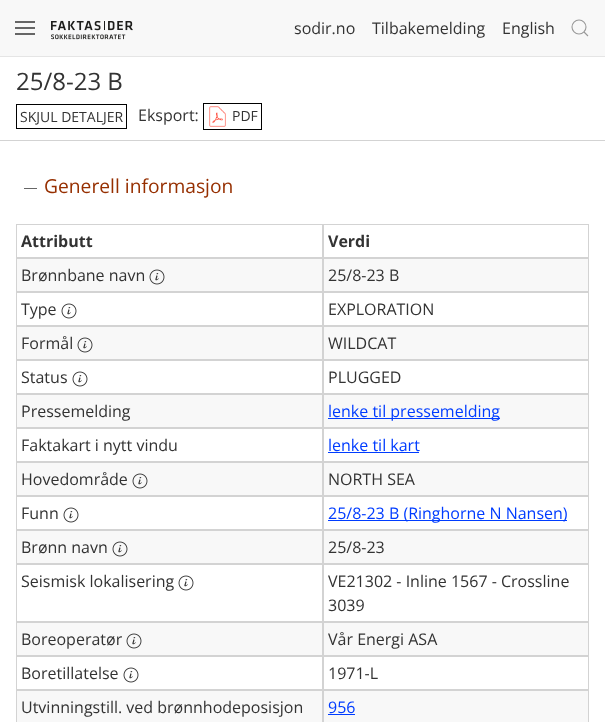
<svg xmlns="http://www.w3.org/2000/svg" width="605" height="722">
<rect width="100%" height="100%" fill="#fff"/>
<rect y="56" width="605" height="1" fill="#e5e5e5"/>
<rect width="605" height="56" fill="#f8f8f8"/>
<rect x="15" y="21" width="20" height="2" fill="#666"/>
<rect x="15" y="27" width="20" height="2" fill="#666"/>
<rect x="15" y="33" width="20" height="2" fill="#666"/>
<image x="51" y="20" width="82" height="20" href="media/1.png"/>
<text x="294" y="34" style="font-family:Open Sans;font-size:16px;fill:#333">sodir.no</text>
<text x="372" y="34" style="font-family:Open Sans;font-size:16px;fill:#333">Tilbakemelding</text>
<text x="502" y="34" style="font-family:Open Sans;font-size:16px;fill:#333">English</text>
<circle cx="579" cy="27" r="7" fill="none" stroke="#999" stroke-width="1.1"/>
<path d="M584 32l4 4z" fill="none" stroke="#999" stroke-width="1.1"/>
<rect y="140" width="605" height="1" fill="#d3d3d3"/>
<text x="16" y="90" style="font-family:Open Sans;font-size:24px;fill:#333">25/8-23 B</text>
<rect x="16.5" y="104.5" width="110" height="24" fill="none" stroke="#000"/>
<text x="20" y="122" style="font-family:Open Sans;font-size:14px;fill:#333">SKJUL DETALJER</text>
<text x="138" y="121" style="font-family:Open Sans;font-size:16px;fill:#333">Eksport:</text>
<rect x="203.5" y="103.5" width="58" height="26" fill="none" stroke="#000"/>
<image x="209" y="106" width="17" height="21" href="media/2.png"/>
<text x="232" y="121" style="font-family:Open Sans;font-size:14px;fill:#333">PDF</text>
<rect x="24" y="188" width="13" height="1" fill="#666"/>
<text x="44" y="193" style="font-family:Open Sans;font-size:19.25px;fill:#962f00">Generell informasjon</text>
<rect x="16.5" y="224.5" width="306" height="33" fill="none" stroke="#d3d3d3"/>
<text x="21" y="247" style="font-family:Open Sans;font-size:16px;font-weight:bold;fill:#333">Attributt</text>
<rect x="323.5" y="224.5" width="265" height="33" fill="none" stroke="#d3d3d3"/>
<text x="328" y="247" style="font-family:Open Sans;font-size:16px;font-weight:bold;fill:#333">Verdi</text>
<rect x="17" y="259" width="571" height="32" fill="#f8f8f8"/>
<rect x="16.5" y="258.5" width="306" height="33" fill="none" stroke="#d3d3d3"/>
<text x="21" y="281" style="font-family:Open Sans;font-size:16px;fill:#333">Brønnbane navn</text>
<image x="149" y="269" width="16" height="16" href="media/3.png"/>
<rect x="323.5" y="258.5" width="265" height="33" fill="none" stroke="#d3d3d3"/>
<text x="328" y="281" style="font-family:Open Sans;font-size:16px;fill:#333">25/8-23 B</text>
<rect x="16.5" y="292.5" width="306" height="33" fill="none" stroke="#d3d3d3"/>
<text x="21" y="315" style="font-family:Open Sans;font-size:16px;fill:#333">Type</text>
<image x="61" y="303" width="16" height="16" href="media/4.png"/>
<rect x="323.5" y="292.5" width="265" height="33" fill="none" stroke="#d3d3d3"/>
<text x="328" y="315" style="font-family:Open Sans;font-size:16px;fill:#333">EXPLORATION</text>
<rect x="17" y="327" width="571" height="32" fill="#f8f8f8"/>
<rect x="16.5" y="326.5" width="306" height="33" fill="none" stroke="#d3d3d3"/>
<text x="21" y="349" style="font-family:Open Sans;font-size:16px;fill:#333">Formål</text>
<image x="77" y="337" width="16" height="16" href="media/3.png"/>
<rect x="323.5" y="326.5" width="265" height="33" fill="none" stroke="#d3d3d3"/>
<text x="328" y="349" style="font-family:Open Sans;font-size:16px;fill:#333">WILDCAT</text>
<rect x="16.5" y="360.5" width="306" height="33" fill="none" stroke="#d3d3d3"/>
<text x="21" y="383" style="font-family:Open Sans;font-size:16px;fill:#333">Status</text>
<image x="72" y="371" width="16" height="16" href="media/4.png"/>
<rect x="323.5" y="360.5" width="265" height="33" fill="none" stroke="#d3d3d3"/>
<text x="328" y="383" style="font-family:Open Sans;font-size:16px;fill:#333">PLUGGED</text>
<rect x="17" y="395" width="571" height="32" fill="#f8f8f8"/>
<rect x="16.5" y="394.5" width="306" height="33" fill="none" stroke="#d3d3d3"/>
<text x="21" y="417" style="font-family:Open Sans;font-size:16px;fill:#333">Pressemelding</text>
<rect x="323.5" y="394.5" width="265" height="33" fill="none" stroke="#d3d3d3"/>
<rect x="328" y="418" width="172" height="1" fill="#003cff"/>
<text x="328" y="417" style="font-family:Open Sans;font-size:16px;fill:#003cff">lenke til pressemelding</text>
<rect x="16.5" y="428.5" width="306" height="33" fill="none" stroke="#d3d3d3"/>
<text x="21" y="451" style="font-family:Open Sans;font-size:16px;fill:#333">Faktakart i nytt vindu</text>
<rect x="323.5" y="428.5" width="265" height="33" fill="none" stroke="#d3d3d3"/>
<text x="328" y="451" style="font-family:Open Sans;font-size:16px;fill:#003cff">lenke til kart</text>
<rect x="328" y="452" width="91" height="1" fill="#003cff"/>
<rect x="17" y="463" width="571" height="32" fill="#f8f8f8"/>
<rect x="16.5" y="462.5" width="306" height="33" fill="none" stroke="#d3d3d3"/>
<text x="21" y="485" style="font-family:Open Sans;font-size:16px;fill:#333">Hovedområde</text>
<image x="132" y="473" width="16" height="16" href="media/3.png"/>
<rect x="323.5" y="462.5" width="265" height="33" fill="none" stroke="#d3d3d3"/>
<text x="328" y="485" style="font-family:Open Sans;font-size:16px;fill:#333">NORTH SEA</text>
<rect x="16.5" y="496.5" width="306" height="33" fill="none" stroke="#d3d3d3"/>
<text x="21" y="519" style="font-family:Open Sans;font-size:16px;fill:#333">Funn</text>
<image x="63" y="507" width="16" height="16" href="media/4.png"/>
<rect x="323.5" y="496.5" width="265" height="33" fill="none" stroke="#d3d3d3"/>
<rect x="328" y="520" width="239" height="1" fill="#003cff"/>
<text x="328" y="519" style="font-family:Open Sans;font-size:16px;fill:#003cff">25/8-23 B (Ringhorne N Nansen)</text>
<rect x="17" y="531" width="571" height="32" fill="#f8f8f8"/>
<rect x="16.5" y="530.5" width="306" height="33" fill="none" stroke="#d3d3d3"/>
<text x="21" y="553" style="font-family:Open Sans;font-size:16px;fill:#333">Brønn navn</text>
<image x="112" y="541" width="16" height="16" href="media/3.png"/>
<rect x="323.5" y="530.5" width="265" height="33" fill="none" stroke="#d3d3d3"/>
<text x="328" y="553" style="font-family:Open Sans;font-size:16px;fill:#333">25/8-23</text>
<rect x="16.5" y="564.5" width="306" height="57" fill="none" stroke="#d3d3d3"/>
<text x="21" y="587" style="font-family:Open Sans;font-size:16px;fill:#333">Seismisk lokalisering</text>
<image x="178" y="575" width="16" height="16" href="media/4.png"/>
<rect x="323.5" y="564.5" width="265" height="57" fill="none" stroke="#d3d3d3"/>
<text x="328" y="587" style="font-family:Open Sans;font-size:16px;fill:#333">VE21302 - Inline 1567 - Crossline</text>
<text x="328" y="611" style="font-family:Open Sans;font-size:16px;fill:#333">3039</text>
<rect x="17" y="623" width="571" height="32" fill="#f8f8f8"/>
<rect x="16.5" y="622.5" width="306" height="33" fill="none" stroke="#d3d3d3"/>
<text x="21" y="645" style="font-family:Open Sans;font-size:16px;fill:#333">Boreoperatør</text>
<image x="126" y="633" width="16" height="16" href="media/3.png"/>
<rect x="323.5" y="622.5" width="265" height="33" fill="none" stroke="#d3d3d3"/>
<text x="328" y="645" style="font-family:Open Sans;font-size:16px;fill:#333">Vår Energi ASA</text>
<rect x="16.5" y="656.5" width="306" height="33" fill="none" stroke="#d3d3d3"/>
<text x="21" y="679" style="font-family:Open Sans;font-size:16px;fill:#333">Boretillatelse</text>
<image x="123" y="667" width="16" height="16" href="media/4.png"/>
<rect x="323.5" y="656.5" width="265" height="33" fill="none" stroke="#d3d3d3"/>
<text x="328" y="679" style="font-family:Open Sans;font-size:16px;fill:#333">1971-L</text>
<rect x="17" y="691" width="571" height="31" fill="#f8f8f8"/>
<rect x="16.5" y="690.5" width="306" height="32" fill="none" stroke="#d3d3d3"/>
<text x="21" y="713" style="font-family:Open Sans;font-size:16px;fill:#333">Utvinningstill. ved brønnhodeposisjon</text>
<rect x="323.5" y="690.5" width="265" height="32" fill="none" stroke="#d3d3d3"/>
<text x="328" y="713" style="font-family:Open Sans;font-size:16px;fill:#003cff">956</text>
<rect x="328" y="714" width="27" height="1" fill="#003cff"/>
</svg>
